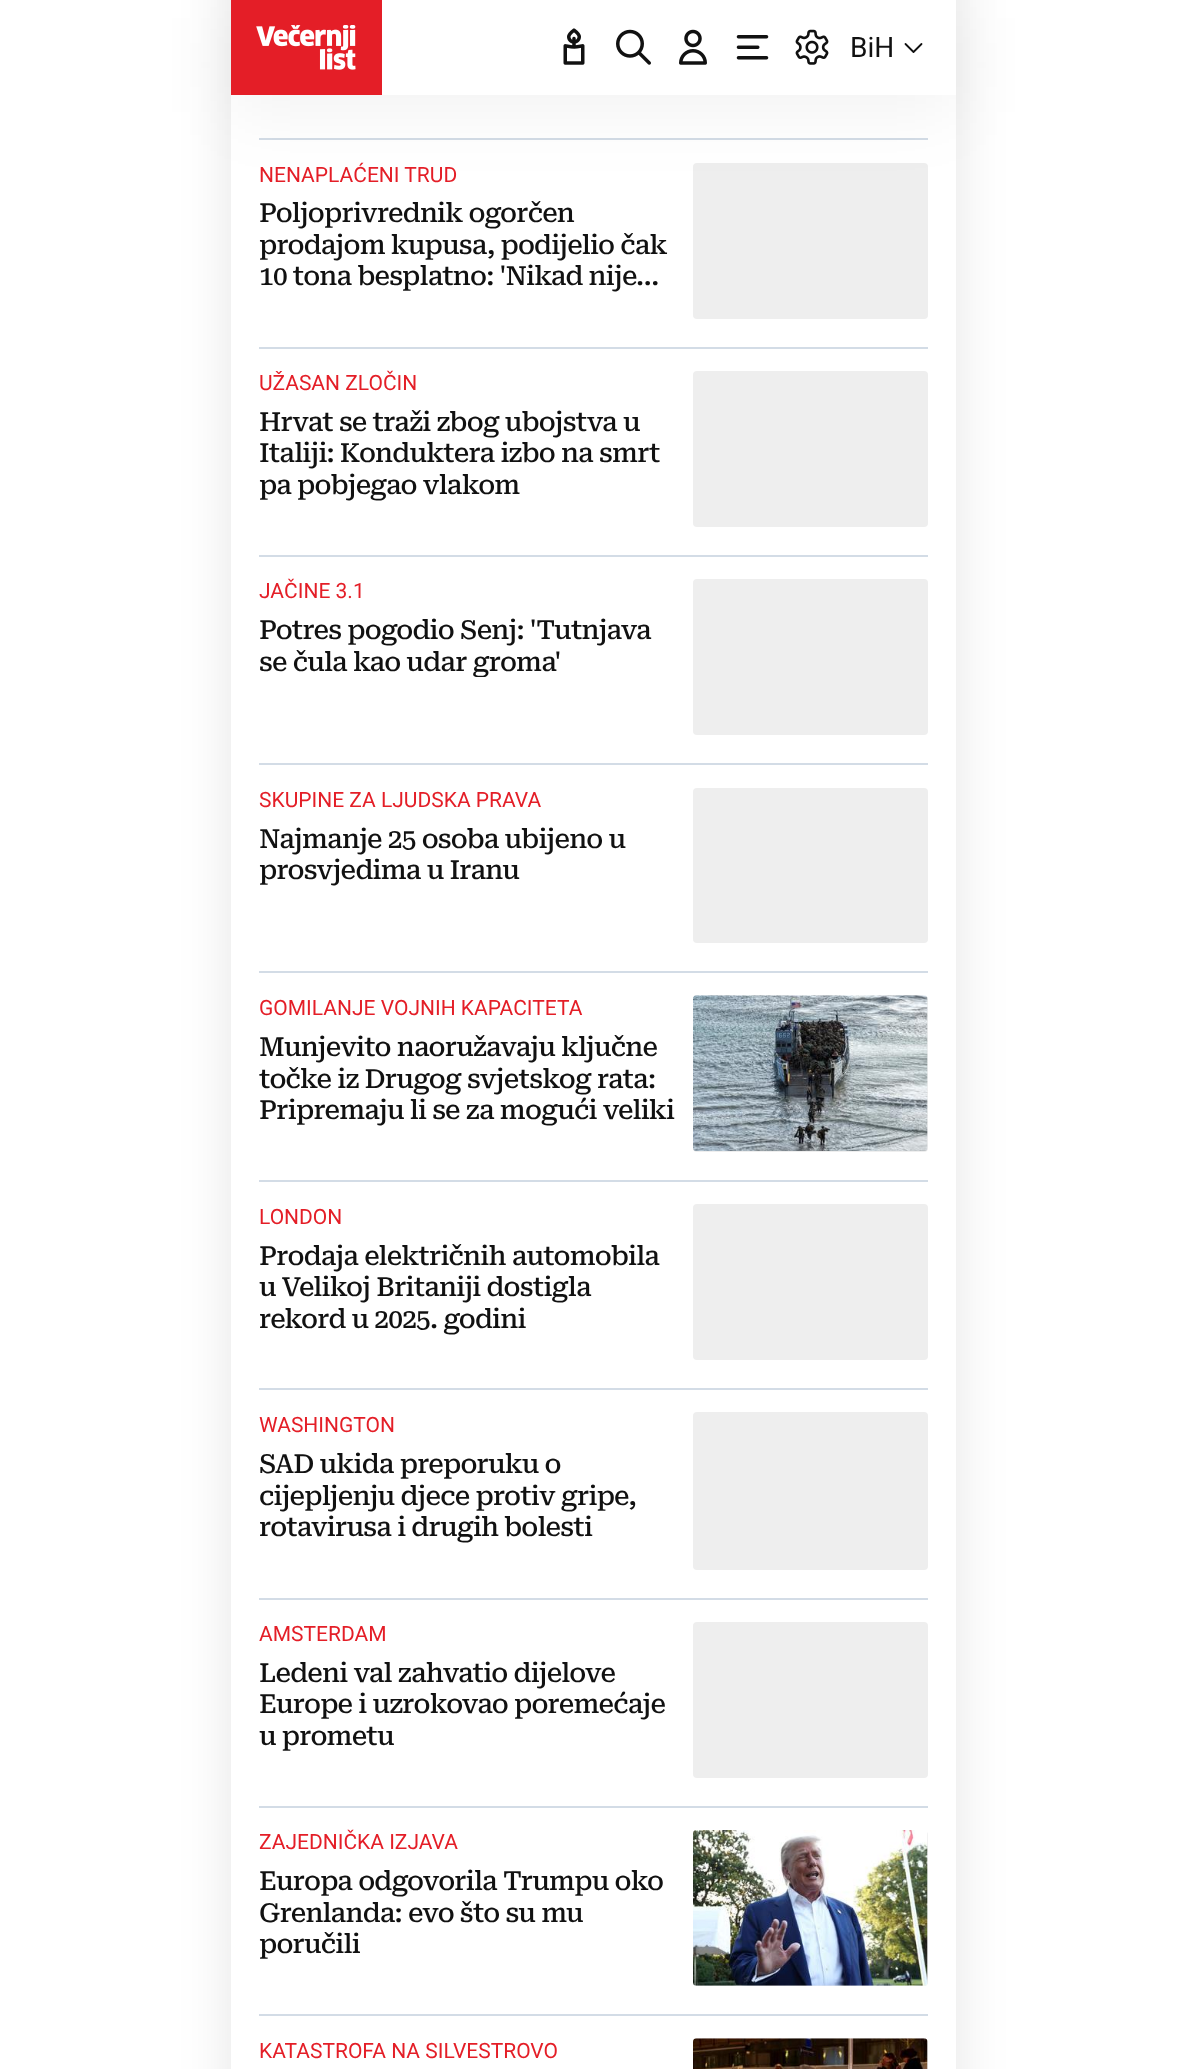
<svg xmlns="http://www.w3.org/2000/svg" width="1185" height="2069">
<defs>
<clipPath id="clip1"><path d="M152 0h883v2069h-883zm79-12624h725v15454h-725z" clip-rule="evenodd"/></clipPath>
<clipPath id="clip2"><rect x="259" y="614" width="417" height="63"/></clipPath>
</defs>
<rect width="100%" height="100%" fill="#fff"/>
<g clip-path="url(#clip1)">
<rect x="231" y="-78" width="725" height="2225" fill="#0000001a" filter="blur(26px)"/>
</g>
<rect x="259" y="138" width="669" height="2" fill="#d3dce6"/>
<rect x="693" y="163" width="235" height="156" rx="4" fill="#eee"/>
<rect x="231" y="18" width="725" height="94" fill="#0000000d" filter="blur(35px)"/>
<rect x="382" width="574" height="95" fill="#fff"/>
<rect x="231" width="151" height="95" fill="#e41e27"/>
<image x="256" y="25" width="100" height="45" href="media/1.png"/>
<image x="563" y="28" width="22" height="37" href="media/2.png"/>
<image x="616" y="29" width="35" height="36" href="media/3.png"/>
<image x="679" y="29" width="28" height="36" href="media/4.png"/>
<image x="736" y="35" width="33" height="25" href="media/5.png"/>
<image x="795" y="29" width="34" height="36" href="media/6.png"/>
<text x="850" y="57" style="font-family:Roboto;font-size:28px;fill:#111">BiH</text>
<path d="M921.5 44l-8 8l-8-8" fill="none" stroke="#111" stroke-width="1.8" stroke-linecap="round" stroke-linejoin="round"/>
<text x="259" y="182" style="font-family:Roboto;font-size:21px;fill:#e41e27">NENAPLAĆENI TRUD</text>
<text x="259" y="222" style="font-family:Roboto Serif;font-size:26.25px;font-weight:500;letter-spacing:-0.8px;fill:#111">Poljoprivrednik ogorčen</text>
<text x="259" y="254" style="font-family:Roboto Serif;font-size:26.25px;font-weight:500;letter-spacing:-0.8px;fill:#111">prodajom kupusa, podijelio čak</text>
<text x="259" y="285" style="font-family:Roboto Serif;font-size:26.25px;font-weight:500;letter-spacing:-0.8px;fill:#111">10 tona besplatno: 'Nikad nije…</text>
<rect x="259" y="347" width="669" height="2" fill="#d3dce6"/>
<text x="259" y="390" style="font-family:Roboto;font-size:21px;fill:#e41e27">UŽASAN ZLOČIN</text>
<text x="259" y="431" style="font-family:Roboto Serif;font-size:26.25px;font-weight:500;letter-spacing:-0.8px;fill:#111">Hrvat se traži zbog ubojstva u</text>
<text x="259" y="462" style="font-family:Roboto Serif;font-size:26.25px;font-weight:500;letter-spacing:-0.8px;fill:#111">Italiji: Konduktera izbo na smrt</text>
<text x="259" y="494" style="font-family:Roboto Serif;font-size:26.25px;font-weight:500;letter-spacing:-0.8px;fill:#111">pa pobjegao vlakom</text>
<rect x="693" y="371" width="235" height="156" rx="4" fill="#eee"/>
<rect x="259" y="555" width="669" height="2" fill="#d3dce6"/>
<text x="259" y="598" style="font-family:Roboto;font-size:21px;fill:#e41e27">JAČINE 3.1</text>
<text x="259" y="639" style="font-family:Roboto Serif;font-size:26.25px;font-weight:500;letter-spacing:-0.8px;fill:#111">Potres pogodio Senj: 'Tutnjava</text>
<g clip-path="url(#clip2)">
<text x="259" y="671" style="font-family:Roboto Serif;font-size:26.25px;font-weight:500;letter-spacing:-0.8px;fill:#111">se čula kao udar groma'</text>
</g>
<rect x="693" y="579" width="235" height="156" rx="4" fill="#eee"/>
<rect x="259" y="763" width="669" height="2" fill="#d3dce6"/>
<text x="259" y="807" style="font-family:Roboto;font-size:21px;fill:#e41e27">SKUPINE ZA LJUDSKA PRAVA</text>
<text x="259" y="848" style="font-family:Roboto Serif;font-size:26.25px;font-weight:500;letter-spacing:-0.8px;fill:#111">Najmanje 25 osoba ubijeno u</text>
<text x="259" y="879" style="font-family:Roboto Serif;font-size:26.25px;font-weight:500;letter-spacing:-0.8px;fill:#111">prosvjedima u Iranu</text>
<rect x="693" y="788" width="235" height="155" rx="4" fill="#eee"/>
<rect x="259" y="971" width="669" height="2" fill="#d3dce6"/>
<text x="259" y="1015" style="font-family:Roboto;font-size:21px;fill:#e41e27">GOMILANJE VOJNIH KAPACITETA</text>
<text x="259" y="1056" style="font-family:Roboto Serif;font-size:26.25px;font-weight:500;letter-spacing:-0.8px;fill:#111">Munjevito naoružavaju ključne</text>
<text x="259" y="1088" style="font-family:Roboto Serif;font-size:26.25px;font-weight:500;letter-spacing:-0.8px;fill:#111">točke iz Drugog svjetskog rata:</text>
<text x="259" y="1119" style="font-family:Roboto Serif;font-size:26.25px;font-weight:500;letter-spacing:-0.8px;fill:#111">Pripremaju li se za mogući veliki</text>
<rect x="693" y="996" width="235" height="156" rx="4" fill="#eee"/>
<image x="693" y="995" width="235" height="156" href="media/7.png"/>
<rect x="259" y="1180" width="669" height="2" fill="#d3dce6"/>
<text x="259" y="1224" style="font-family:Roboto;font-size:21px;fill:#e41e27">LONDON</text>
<text x="259" y="1265" style="font-family:Roboto Serif;font-size:26.25px;font-weight:500;letter-spacing:-0.8px;fill:#111">Prodaja električnih automobila</text>
<text x="259" y="1296" style="font-family:Roboto Serif;font-size:26.25px;font-weight:500;letter-spacing:-0.8px;fill:#111">u Velikoj Britaniji dostigla</text>
<text x="259" y="1328" style="font-family:Roboto Serif;font-size:26.25px;font-weight:500;letter-spacing:-0.8px;fill:#111">rekord u 2025. godini</text>
<rect x="693" y="1204" width="235" height="156" rx="4" fill="#eee"/>
<rect x="259" y="1388" width="669" height="2" fill="#d3dce6"/>
<text x="259" y="1432" style="font-family:Roboto;font-size:21px;fill:#e41e27">WASHINGTON</text>
<text x="259" y="1473" style="font-family:Roboto Serif;font-size:26.25px;font-weight:500;letter-spacing:-0.8px;fill:#111">SAD ukida preporuku o</text>
<text x="259" y="1505" style="font-family:Roboto Serif;font-size:26.25px;font-weight:500;letter-spacing:-0.8px;fill:#111">cijepljenju djece protiv gripe,</text>
<text x="259" y="1536" style="font-family:Roboto Serif;font-size:26.25px;font-weight:500;letter-spacing:-0.8px;fill:#111">rotavirusa i drugih bolesti</text>
<rect x="693" y="1412" width="235" height="158" rx="4" fill="#eee"/>
<rect x="259" y="1598" width="669" height="2" fill="#d3dce6"/>
<text x="259" y="1641" style="font-family:Roboto;font-size:21px;fill:#e41e27">AMSTERDAM</text>
<text x="259" y="1682" style="font-family:Roboto Serif;font-size:26.25px;font-weight:500;letter-spacing:-0.8px;fill:#111">Ledeni val zahvatio dijelove</text>
<text x="259" y="1713" style="font-family:Roboto Serif;font-size:26.25px;font-weight:500;letter-spacing:-0.8px;fill:#111">Europe i uzrokovao poremećaje</text>
<text x="259" y="1745" style="font-family:Roboto Serif;font-size:26.25px;font-weight:500;letter-spacing:-0.8px;fill:#111">u prometu</text>
<rect x="693" y="1622" width="235" height="156" rx="4" fill="#eee"/>
<rect x="259" y="1806" width="669" height="2" fill="#d3dce6"/>
<text x="259" y="1849" style="font-family:Roboto;font-size:21px;fill:#e41e27">ZAJEDNIČKA IZJAVA</text>
<text x="259" y="1890" style="font-family:Roboto Serif;font-size:26.25px;font-weight:500;letter-spacing:-0.8px;fill:#111">Europa odgovorila Trumpu oko</text>
<text x="259" y="1922" style="font-family:Roboto Serif;font-size:26.25px;font-weight:500;letter-spacing:-0.8px;fill:#111">Grenlanda: evo što su mu</text>
<text x="259" y="1953" style="font-family:Roboto Serif;font-size:26.25px;font-weight:500;letter-spacing:-0.8px;fill:#111">poručili</text>
<rect x="693" y="1831" width="235" height="155" rx="4" fill="#eee"/>
<image x="693" y="1830" width="235" height="156" href="media/8.png"/>
<rect x="259" y="2014" width="669" height="2" fill="#d3dce6"/>
<text x="259" y="2058" style="font-family:Roboto;font-size:21px;fill:#e41e27">KATASTROFA NA SILVESTROVO</text>
<rect x="693" y="2039" width="235" height="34" rx="4" fill="#eee"/>
<image x="693" y="2038" width="235" height="31" href="media/9.png"/>
</svg>
